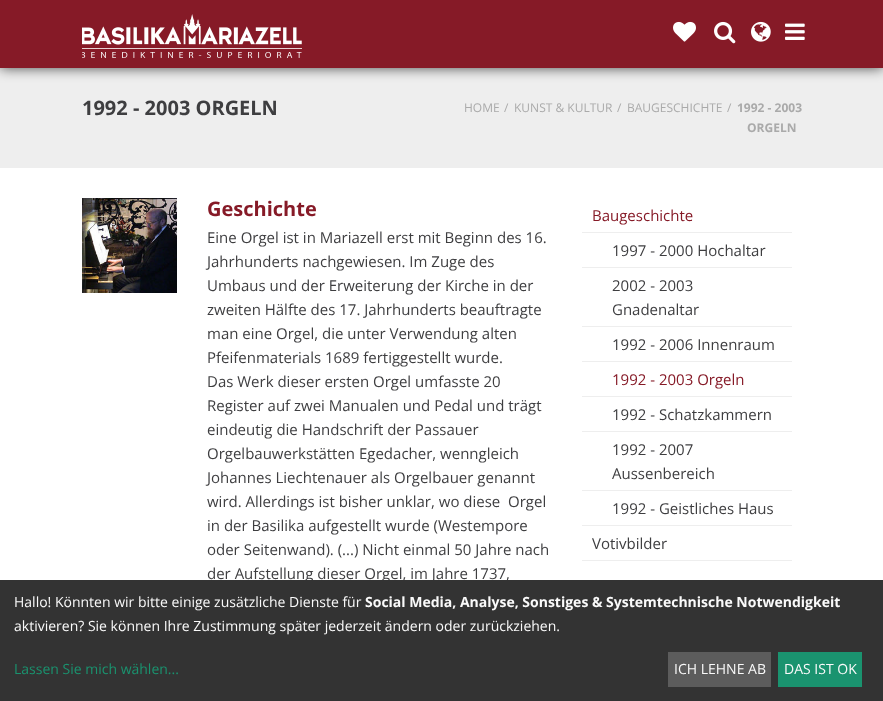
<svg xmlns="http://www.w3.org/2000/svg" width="883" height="701">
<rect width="100%" height="100%" fill="#fff"/>
<rect y="68" width="883" height="100" fill="#eee"/>
<rect width="883" height="68" fill="#000000b3" filter="blur(6.5px)"/>
<rect width="883" height="68" fill="#861a27"/>
<image x="82" y="14" width="220" height="44" href="media/1.png"/>
<image x="673" y="21" width="23" height="21" href="media/2.png"/>
<image x="714" y="21" width="22" height="23" href="media/3.png"/>
<image x="751" y="21" width="20" height="21" href="media/4.png"/>
<image x="785" y="23" width="20" height="17" href="media/5.png"/>
<text x="82" y="115" style="font-family:Open Sans;font-size:20px;font-weight:bold;fill:#3e3e40">1992 - 2003 ORGELN</text>
<text x="464" y="112" style="font-family:Open Sans;font-size:12px;fill:#aaa">HOME</text>
<text x="504" y="112" style="font-family:Open Sans;font-size:12px;fill:#aaa">/</text>
<text x="514" y="112" style="font-family:Open Sans;font-size:12px;fill:#aaa">KUNST &amp; KULTUR</text>
<text x="617" y="112" style="font-family:Open Sans;font-size:12px;fill:#aaa">/</text>
<text x="627" y="112" style="font-family:Open Sans;font-size:12px;fill:#aaa">BAUGESCHICHTE</text>
<text x="727" y="112" style="font-family:Open Sans;font-size:12px;fill:#aaa">/</text>
<text x="737" y="112" style="font-family:Open Sans;font-size:12px;font-weight:bold;fill:#aaa">1992 - 2003</text>
<text x="747" y="132" style="font-family:Open Sans;font-size:12px;font-weight:bold;fill:#aaa">ORGELN</text>
<image x="82" y="198" width="95" height="95" href="media/6.png"/>
<text x="207" y="216" style="font-family:Open Sans;font-size:20px;font-weight:bold;fill:#861a27">Geschichte</text>
<text x="207" y="243" style="font-family:Open Sans;font-size:15px;fill:#3e3e40">Eine Orgel ist in Mariazell erst mit Beginn des 16.</text>
<text x="207" y="267" style="font-family:Open Sans;font-size:15px;fill:#3e3e40">Jahrhunderts nachgewiesen. Im Zuge des</text>
<text x="207" y="291" style="font-family:Open Sans;font-size:15px;fill:#3e3e40">Umbaus und der Erweiterung der Kirche in der</text>
<text x="207" y="315" style="font-family:Open Sans;font-size:15px;fill:#3e3e40">zweiten Hälfte des 17. Jahrhunderts beauftragte</text>
<text x="207" y="339" style="font-family:Open Sans;font-size:15px;fill:#3e3e40">man eine Orgel, die unter Verwendung alten</text>
<text x="207" y="363" style="font-family:Open Sans;font-size:15px;fill:#3e3e40">Pfeifenmaterials 1689 fertiggestellt wurde.</text>
<text x="207" y="387" style="font-family:Open Sans;font-size:15px;fill:#3e3e40">Das Werk dieser ersten Orgel umfasste 20</text>
<text x="207" y="411" style="font-family:Open Sans;font-size:15px;fill:#3e3e40">Register auf zwei Manualen und Pedal und trägt</text>
<text x="207" y="435" style="font-family:Open Sans;font-size:15px;fill:#3e3e40">eindeutig die Handschrift der Passauer</text>
<text x="207" y="459" style="font-family:Open Sans;font-size:15px;fill:#3e3e40">Orgelbauwerkstätten Egedacher, wenngleich</text>
<text x="207" y="483" style="font-family:Open Sans;font-size:15px;fill:#3e3e40">Johannes Liechtenauer als Orgelbauer genannt</text>
<text x="207" y="507" style="font-family:Open Sans;font-size:15px;fill:#3e3e40" xml:space="preserve">wird. Allerdings ist bisher unklar, wo diese  Orgel</text>
<text x="207" y="531" style="font-family:Open Sans;font-size:15px;fill:#3e3e40">in der Basilika aufgestellt wurde (Westempore</text>
<text x="207" y="555" style="font-family:Open Sans;font-size:15px;fill:#3e3e40">oder Seitenwand). (...) Nicht einmal 50 Jahre nach</text>
<text x="207" y="579" style="font-family:Open Sans;font-size:15px;fill:#3e3e40">der Aufstellung dieser Orgel, im Jahre 1737,</text>
<rect x="582" y="232" width="210" height="1" fill="#eee"/>
<text x="592" y="221" style="font-family:Open Sans;font-size:15px;fill:#861a27">Baugeschichte</text>
<rect x="582" y="267" width="210" height="1" fill="#eee"/>
<text x="612" y="256" style="font-family:Open Sans;font-size:15px;fill:#3e3e40">1997 - 2000 Hochaltar</text>
<rect x="582" y="326" width="210" height="1" fill="#eee"/>
<text x="612" y="291" style="font-family:Open Sans;font-size:15px;fill:#3e3e40">2002 - 2003</text>
<text x="612" y="315" style="font-family:Open Sans;font-size:15px;fill:#3e3e40">Gnadenaltar</text>
<rect x="582" y="361" width="210" height="1" fill="#eee"/>
<text x="612" y="350" style="font-family:Open Sans;font-size:15px;fill:#3e3e40">1992 - 2006 Innenraum</text>
<rect x="582" y="396" width="210" height="1" fill="#eee"/>
<text x="612" y="385" style="font-family:Open Sans;font-size:15px;fill:#861a27">1992 - 2003 Orgeln</text>
<rect x="582" y="431" width="210" height="1" fill="#eee"/>
<text x="612" y="420" style="font-family:Open Sans;font-size:15px;fill:#3e3e40">1992 - Schatzkammern</text>
<rect x="582" y="490" width="210" height="1" fill="#eee"/>
<text x="612" y="455" style="font-family:Open Sans;font-size:15px;fill:#3e3e40">1992 - 2007</text>
<text x="612" y="479" style="font-family:Open Sans;font-size:15px;fill:#3e3e40">Aussenbereich</text>
<rect x="582" y="525" width="210" height="1" fill="#eee"/>
<text x="612" y="514" style="font-family:Open Sans;font-size:15px;fill:#3e3e40">1992 - Geistliches Haus</text>
<rect x="582" y="560" width="210" height="1" fill="#eee"/>
<text x="592" y="549" style="font-family:Open Sans;font-size:15px;fill:#3e3e40">Votivbilder</text>
<rect y="580" width="883" height="121" fill="#333"/>
<text x="14" y="607" style="font-family:Open Sans;font-size:14px;fill:#fafafa">Hallo! Könnten wir bitte einige zusätzliche Dienste für</text>
<text x="365" y="607" style="font-family:Open Sans;font-size:14px;font-weight:bold;fill:#fafafa">Social Media, Analyse, Sonstiges &amp; Systemtechnische Notwendigkeit</text>
<text x="14" y="631" style="font-family:Open Sans;font-size:14px;fill:#fafafa">aktivieren? Sie können Ihre Zustimmung später jederzeit ändern oder zurückziehen.</text>
<text x="14" y="674" style="font-family:Open Sans;font-size:14px;fill:#1a936f">Lassen Sie mich wählen...</text>
<rect x="668" y="652" width="103" height="35" fill="#5c5c5c"/>
<text x="674" y="674" style="font-family:Open Sans;font-size:14px;fill:#fafafa">ICH LEHNE AB</text>
<rect x="778" y="652" width="84" height="35" fill="#1a936f"/>
<text x="784" y="674" style="font-family:Open Sans;font-size:14px;fill:#fafafa">DAS IST OK</text>
</svg>
